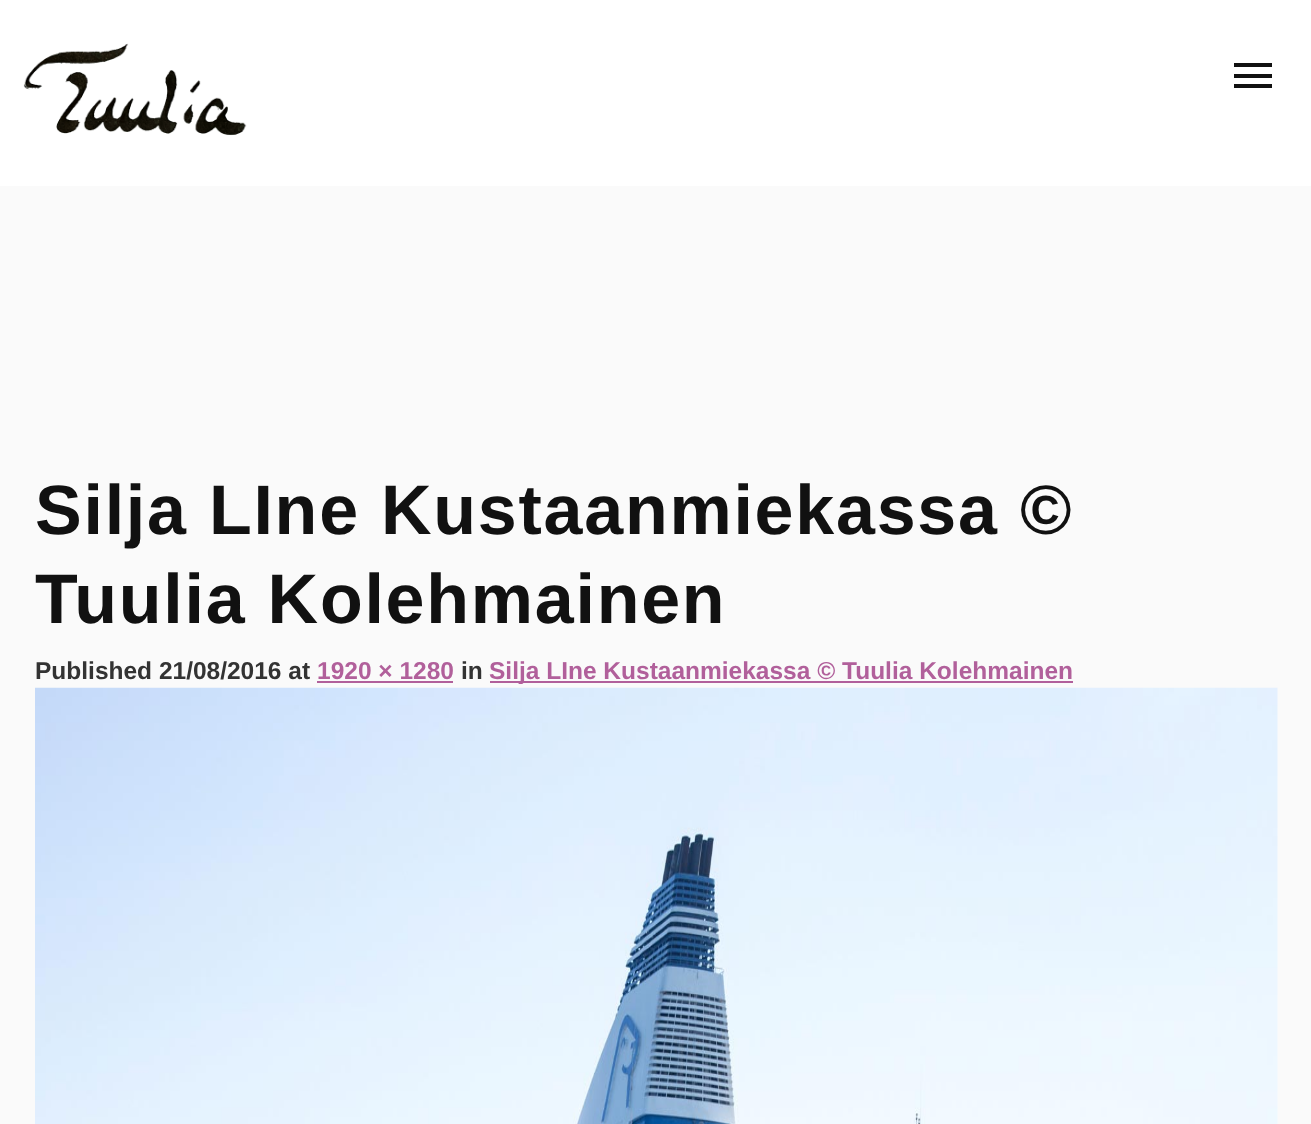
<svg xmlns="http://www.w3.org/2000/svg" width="1311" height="1124">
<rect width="100%" height="100%" fill="#fafafa"/>
<rect width="1311" height="186" fill="#fff"/>
<image x="23" y="43" width="224" height="93" href="media/1.png"/>
<rect x="1234" y="74" width="38" height="4" fill="#111"/>
<rect x="1234" y="63" width="38" height="4" fill="#111"/>
<rect x="1234" y="84" width="38" height="4" fill="#111"/>
<text x="35" y="534" style="font-family:Liberation Sans;font-size:70px;font-weight:bold;letter-spacing:1.75px;fill:#111">Silja LIne Kustaanmiekassa ©</text>
<text x="35" y="623" style="font-family:Liberation Sans;font-size:70px;font-weight:bold;letter-spacing:1.75px;fill:#111">Tuulia Kolehmainen</text>
<text x="35" y="679" style="font-family:Liberation Sans;font-size:24.5px;font-weight:bold;fill:#333">Published 21/08/2016 at</text>
<text x="317" y="679" style="font-family:Liberation Sans;font-size:24.5px;font-weight:bold;fill:#b1609b">1920 × 1280</text>
<rect x="317" y="681" width="136" height="2" fill="#b1609b"/>
<text x="461" y="679" style="font-family:Liberation Sans;font-size:24.5px;font-weight:bold;fill:#333">in</text>
<rect x="490" y="681" width="583" height="2" fill="#b1609b"/>
<text x="489" y="679" style="font-family:Liberation Sans;font-size:24.5px;font-weight:bold;fill:#b1609b">Silja LIne Kustaanmiekassa © Tuulia Kolehmainen</text>
<image x="35" y="687" width="1243" height="437" href="media/2.png"/>
</svg>
